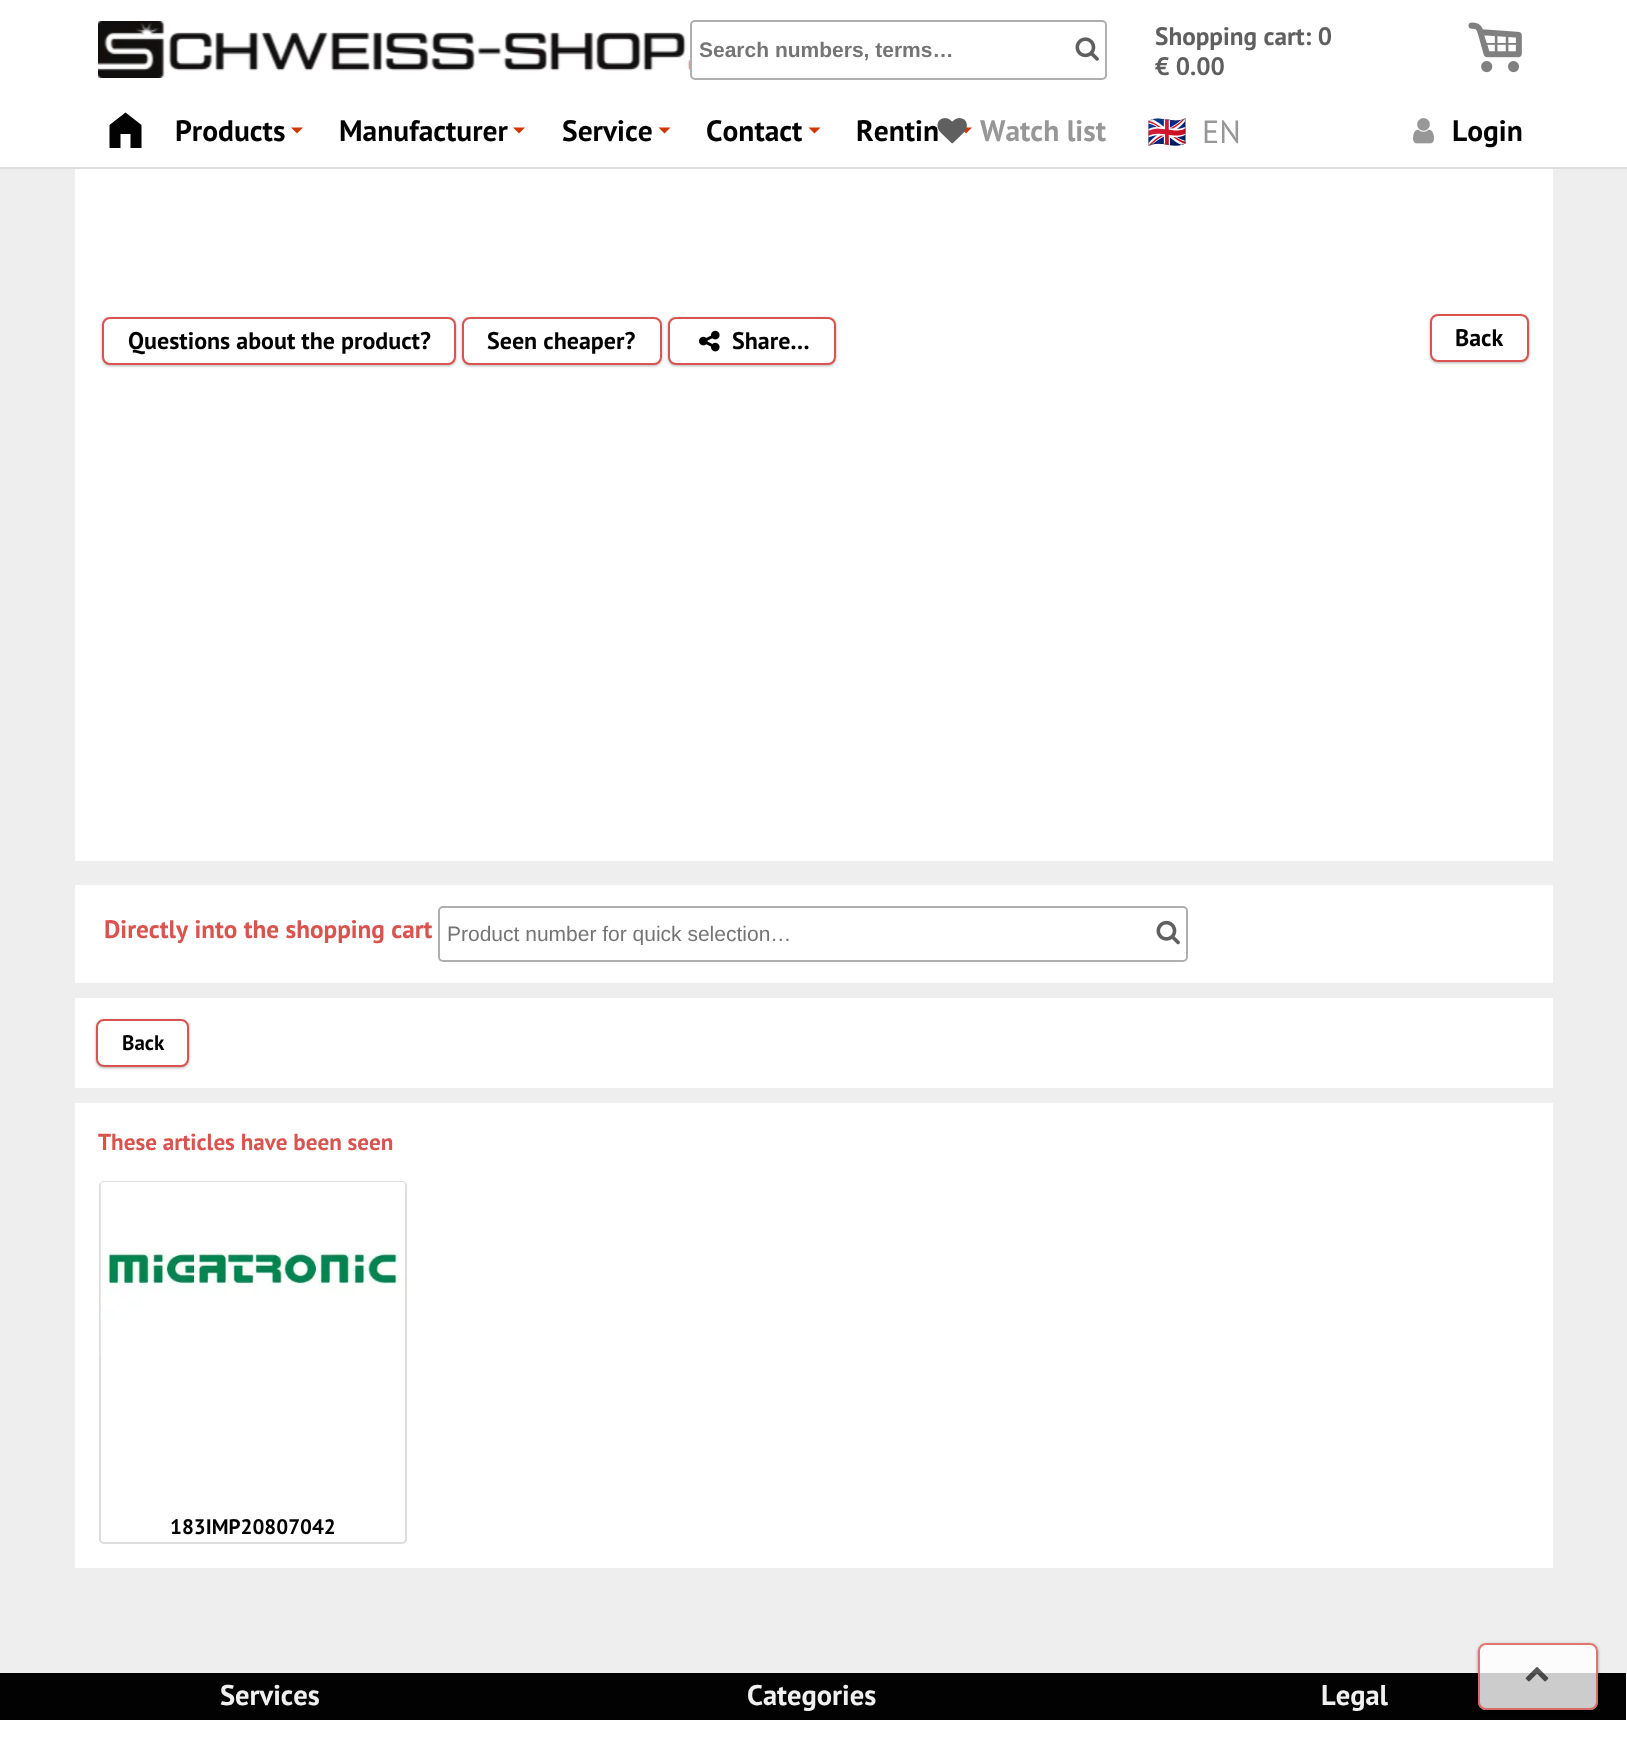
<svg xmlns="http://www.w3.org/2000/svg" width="1627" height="1739">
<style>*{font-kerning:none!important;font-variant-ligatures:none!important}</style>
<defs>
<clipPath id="clip1"><rect x="447" y="921" width="732" height="24"/></clipPath>
<clipPath id="clip2"><path d="M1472 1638h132v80h-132zm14 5h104c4.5 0 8 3.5 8 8v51c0 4.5-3.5 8-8 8h-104c-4.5 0-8-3.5-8-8v-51c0-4.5 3.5-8 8-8z" clip-rule="evenodd"/></clipPath>
</defs>
<rect width="100%" height="100%" fill="#eee"/>
<rect width="1627" height="167" fill="#fff"/>
<rect y="167" width="1627" height="2" fill="#ddd"/>
<image x="98" y="21" width="592" height="57" href="media/1.png"/>
<rect x="691" y="21" width="415" height="58" rx="4" fill="none" stroke="#afafaf" stroke-width="2"/>
<text x="699" y="57" style="font-family:Liberation Sans;font-size:21px;font-weight:bold;fill:#757575">Search numbers, terms…</text>
<image x="1075" y="37" width="24" height="24" href="media/2.png"/>
<text x="1155" y="45" style="font-family:PT Sans;font-size:25.25px;font-weight:bold;fill:#5f5f5f">Shopping cart: 0</text>
<text x="1155" y="75" style="font-family:PT Sans;font-size:25.25px;font-weight:bold;fill:#5f5f5f">€ 0.00</text>
<image x="1468" y="22" width="54" height="51" href="media/3.png"/>
<path d="M109.5 148v-23l16-12.5l16 12.5v23h-11v-14h-10v14z" fill="#020202"/>
<text x="175" y="141" style="font-family:PT Sans;font-size:29.5px;font-weight:bold;fill:#020202">Products</text>
<path d="M291 127.5h12l-6 6z" fill="#d23600"/>
<text x="339" y="141" style="font-family:PT Sans;font-size:29.5px;font-weight:bold;fill:#020202">Manufacturer</text>
<path d="M513 127.5h12l-6 6z" fill="#d23600"/>
<text x="562" y="141" style="font-family:PT Sans;font-size:29.5px;font-weight:bold;fill:#020202">Service</text>
<path d="M658.5 127.5h12l-6 6z" fill="#d23600"/>
<text x="706" y="141" style="font-family:PT Sans;font-size:29.5px;font-weight:bold;fill:#020202">Contact</text>
<path d="M808.5 127.5h12l-6 6z" fill="#d23600"/>
<text x="856" y="141" style="font-family:PT Sans;font-size:29.5px;font-weight:bold;fill:#020202">Rentin</text>
<path d="M960 127.5h12l-6 6z" fill="#d23600"/>
<image x="937" y="118" width="30" height="26" href="media/4.png"/>
<text x="980" y="141" style="font-family:PT Sans;font-size:29.5px;font-weight:bold;fill:#979797">Watch list</text>
<text x="1147" y="143" style="font-family:Noto Color Emoji;font-size:32px;fill:#303030">🇬🇧</text>
<text x="1202" y="143" style="font-family:PT Sans;font-size:32px;fill:#979797">EN</text>
<image x="1413" y="118" width="21" height="26" href="media/5.png"/>
<text x="1452" y="141" style="font-family:PT Sans;font-size:29.5px;font-weight:bold;fill:#020202">Login</text>
<rect x="75" y="169" width="1478" height="692" fill="#fff"/>
<rect x="102" y="318" width="354" height="48" rx="8" fill="#0000004d" filter="blur(1.5px)"/>
<rect x="103" y="318" width="352" height="46" rx="7" fill="#fff" stroke="#d9534f" stroke-width="2"/>
<text x="128" y="349" style="font-family:PT Sans;font-size:24px;font-weight:bold;fill:#020202">Questions about the product?</text>
<rect x="462" y="318" width="200" height="48" rx="8" fill="#0000004d" filter="blur(1.5px)"/>
<rect x="463" y="318" width="198" height="46" rx="7" fill="#fff" stroke="#d9534f" stroke-width="2"/>
<text x="487" y="349" style="font-family:PT Sans;font-size:24px;font-weight:bold;fill:#020202">Seen cheaper?</text>
<rect x="668" y="318" width="168" height="48" rx="8" fill="#0000004d" filter="blur(1.5px)"/>
<rect x="669" y="318" width="166" height="46" rx="7" fill="#fff" stroke="#d9534f" stroke-width="2"/>
<image x="699" y="330" width="21" height="22" href="media/6.png"/>
<text x="732" y="349" style="font-family:PT Sans;font-size:24px;font-weight:bold;fill:#020202">Share…</text>
<rect x="1430" y="315" width="99" height="48" rx="8" fill="#0000004d" filter="blur(1.5px)"/>
<rect x="1431" y="315" width="97" height="46" rx="7" fill="#fff" stroke="#d9534f" stroke-width="2"/>
<text x="1455" y="346" style="font-family:PT Sans;font-size:24px;font-weight:bold;fill:#020202">Back</text>
<rect x="75" y="885" width="1478" height="98" fill="#fff"/>
<text x="104" y="938" style="font-family:PT Sans;font-size:25.25px;font-weight:bold;fill:#d9534f">Directly into the shopping cart</text>
<rect x="439" y="907" width="748" height="54" rx="4" fill="none" stroke="#afafaf" stroke-width="2"/>
<g clip-path="url(#clip1)">
<text x="447" y="941" style="font-family:Liberation Sans;font-size:21px;fill:#757575">Product number for quick selection…</text>
</g>
<image x="1156" y="920" width="24" height="25" href="media/7.png"/>
<rect x="75" y="998" width="1478" height="90" fill="#fff"/>
<rect x="96" y="1020" width="93" height="48" rx="8" fill="#0000004d" filter="blur(1.5px)"/>
<rect x="97" y="1020" width="91" height="46" rx="7" fill="#fff" stroke="#d9534f" stroke-width="2"/>
<text x="122" y="1050" style="font-family:PT Sans;font-size:21px;font-weight:bold;fill:#020202">Back</text>
<rect x="75" y="1103" width="1478" height="465" fill="#fff"/>
<text x="98" y="1150" style="font-family:PT Sans;font-size:23.1px;font-weight:bold;fill:#d9534f">These articles have been seen</text>
<rect x="100" y="1182" width="306" height="361" rx="4" fill="none" stroke="#ddd" stroke-width="2"/>
<path d="M104 1182h298c1.5 0 3 1.5 3 3v297h-304v-297c0-1.5 1.5-3 3-3z" fill="#fff"/>
<image x="100" y="1182" width="305" height="173" href="media/8.png"/>
<text x="170" y="1534" style="font-family:PT Sans;font-size:21px;font-weight:bold;fill:#020202">183IMP20807042</text>
<rect y="1673" width="1627" height="66" fill="#fff"/>
<rect y="1673" width="1626" height="45" fill="#020202"/>
<rect y="1718" width="1626" height="2" fill="#020202"/>
<text x="220" y="1705" style="font-family:PT Sans;font-size:28.5px;font-weight:bold;fill:#f0f0f0">Services</text>
<text x="747" y="1705" style="font-family:PT Sans;font-size:28.5px;font-weight:bold;fill:#f0f0f0">Categories</text>
<text x="1321" y="1705" style="font-family:PT Sans;font-size:28.5px;font-weight:bold;fill:#f0f0f0">Legal</text>
<g clip-path="url(#clip2)">
<rect x="1478" y="1644" width="120" height="68" rx="8" fill="#00000066" filter="blur(1.5px)"/>
</g>
<rect x="1478" y="1643" width="120" height="67" rx="8" fill="#ffffffcc"/>
<rect x="1479" y="1644" width="118" height="65" rx="7" fill="none" stroke="#d9534fcc" stroke-width="2"/>
<image x="1525" y="1667" width="24" height="15" href="media/9.png"/>
</svg>
